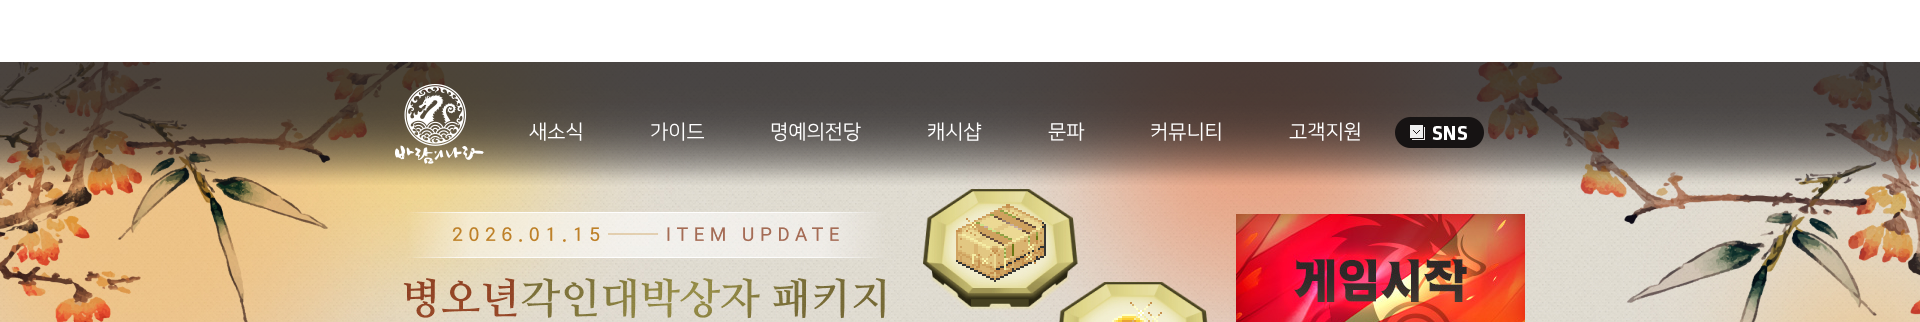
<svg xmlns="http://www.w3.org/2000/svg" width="1920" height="322">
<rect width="100%" height="100%" fill="#fff"/>
<image x="0" y="62" width="1920" height="260" href="media/1.png"/>
<image x="1236" y="214" width="289" height="108" href="media/2.png"/>
<image x="0" y="62" width="1920" height="123" href="media/3.png"/>
<image x="395" y="84" width="89" height="80" href="media/4.png"/>
<text x="529" y="138" style="font-family:'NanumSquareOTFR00';font-size:20px;fill:#fff">새소식</text>
<text x="650" y="138" style="font-family:'NanumSquareOTFR00';font-size:20px;fill:#fff">가이드</text>
<text x="770" y="138" style="font-family:'NanumSquareOTFR00';font-size:20px;fill:#fff">명예의전당</text>
<text x="927" y="138" style="font-family:'NanumSquareOTFR00';font-size:20px;fill:#fff">캐시샵</text>
<text x="1048" y="138" style="font-family:'NanumSquareOTFR00';font-size:20px;fill:#fff">문파</text>
<text x="1150" y="138" style="font-family:'NanumSquareOTFR00';font-size:20px;fill:#fff">커뮤니티</text>
<text x="1289" y="138" style="font-family:'NanumSquareOTFR00';font-size:20px;fill:#fff">고객지원</text>
<image x="1395" y="117" width="89" height="31" href="media/5.png"/>
</svg>
